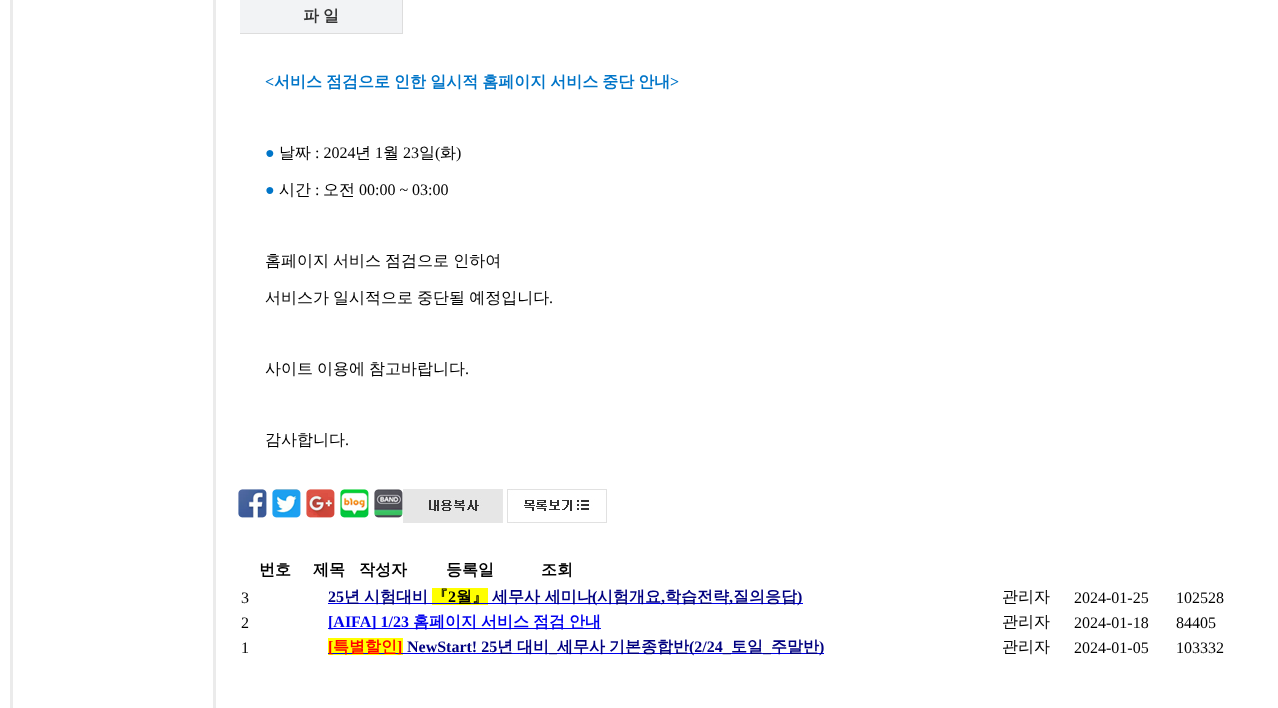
<svg xmlns="http://www.w3.org/2000/svg" width="1278" height="708">
<rect width="100%" height="100%" fill="#fff"/>
<rect x="11.5" y="-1.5" width="203" height="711" fill="none" stroke="#ebebeb" stroke-width="3"/>
<rect x="240" width="162" height="33" fill="#f2f3f5"/>
<rect x="402" width="1" height="34" fill="#ddd"/>
<rect x="240" y="33" width="163" height="1" fill="#ddd"/>
<text x="303" y="21" word-spacing="-0.75" style="font-family:WenQuanYi Zen Hei;font-size:16px;font-weight:bold;fill:#333">파 일</text>
<text x="265" y="87" style="font-family:Liberation Serif;font-size:16px;font-weight:bold;fill:#0075c8">&lt;</text>
<text x="274" y="87" word-spacing="-0.75" style="font-family:WenQuanYi Zen Hei;font-size:16px;font-weight:bold;fill:#0075c8">서비스 점검으로 인한 일시적 홈페이지 서비스 중단 안내</text>
<text x="670" y="87" style="font-family:Liberation Serif;font-size:16px;font-weight:bold;fill:#0075c8">&gt;</text>
<text x="265" y="158" style="font-family:Liberation Serif;font-size:16px;fill:#0075c8">●</text>
<text x="279" y="158" style="font-family:WenQuanYi Zen Hei;font-size:16px;font-weight:500;fill:#000">날짜</text>
<text x="315" y="158" style="font-family:Liberation Serif;font-size:16px;fill:#000">: 2024</text>
<text x="355" y="158" style="font-family:WenQuanYi Zen Hei;font-size:16px;font-weight:500;fill:#000">년</text>
<text x="375" y="158" style="font-family:Liberation Serif;font-size:16px;fill:#000">1</text>
<text x="383" y="158" style="font-family:WenQuanYi Zen Hei;font-size:16px;font-weight:500;fill:#000">월</text>
<text x="403" y="158" style="font-family:Liberation Serif;font-size:16px;fill:#000">23</text>
<text x="419" y="158" style="font-family:WenQuanYi Zen Hei;font-size:16px;font-weight:500;fill:#000">일</text>
<text x="435" y="158" style="font-family:Liberation Serif;font-size:16px;fill:#000">(</text>
<text x="440" y="158" style="font-family:WenQuanYi Zen Hei;font-size:16px;font-weight:500;fill:#000">화</text>
<text x="456" y="158" style="font-family:Liberation Serif;font-size:16px;fill:#000">)</text>
<text x="265" y="195" style="font-family:Liberation Serif;font-size:16px;fill:#0075c8">●</text>
<text x="279" y="195" style="font-family:WenQuanYi Zen Hei;font-size:16px;font-weight:500;fill:#000">시간</text>
<text x="315" y="195" style="font-family:Liberation Serif;font-size:16px;fill:#000">:</text>
<text x="323" y="195" style="font-family:WenQuanYi Zen Hei;font-size:16px;font-weight:500;fill:#000">오전</text>
<text x="359" y="195" style="font-family:Liberation Serif;font-size:16px;fill:#000">00:00 ~ 03:00</text>
<text x="265" y="266" word-spacing="-0.75" style="font-family:WenQuanYi Zen Hei;font-size:16px;font-weight:500;fill:#000">홈페이지 서비스 점검으로 인하여</text>
<text x="265" y="303" word-spacing="-0.75" style="font-family:WenQuanYi Zen Hei;font-size:16px;font-weight:500;fill:#000">서비스가 일시적으로 중단될 예정입니다</text>
<text x="549" y="303" style="font-family:Liberation Serif;font-size:16px;fill:#000">.</text>
<text x="265" y="374" word-spacing="-0.75" style="font-family:WenQuanYi Zen Hei;font-size:16px;font-weight:500;fill:#000">사이트 이용에 참고바랍니다</text>
<text x="465" y="374" style="font-family:Liberation Serif;font-size:16px;fill:#000">.</text>
<text x="265" y="445" style="font-family:WenQuanYi Zen Hei;font-size:16px;font-weight:500;fill:#000">감사합니다</text>
<text x="345" y="445" style="font-family:Liberation Serif;font-size:16px;fill:#000">.</text>
<image x="238" y="489" width="29" height="29" href="media/1.png"/>
<image x="272" y="489" width="29" height="29" href="media/2.png"/>
<image x="306" y="489" width="29" height="29" href="media/3.png"/>
<image x="340" y="489" width="29" height="29" href="media/4.png"/>
<image x="374" y="489" width="29" height="29" href="media/5.png"/>
<image x="403" y="489" width="100" height="34" href="media/6.png"/>
<image x="507" y="489" width="100" height="34" href="media/7.png"/>
<text x="259" y="575" style="font-family:WenQuanYi Zen Hei;font-size:16px;font-weight:bold;fill:#000">번호</text>
<text x="313" y="575" style="font-family:WenQuanYi Zen Hei;font-size:16px;font-weight:bold;fill:#000">제목</text>
<text x="359" y="575" style="font-family:WenQuanYi Zen Hei;font-size:16px;font-weight:bold;fill:#000">작성자</text>
<text x="446" y="575" style="font-family:WenQuanYi Zen Hei;font-size:16px;font-weight:bold;fill:#000">등록일</text>
<text x="541" y="575" style="font-family:WenQuanYi Zen Hei;font-size:16px;font-weight:bold;fill:#000">조회</text>
<text x="241" y="603" style="font-family:Liberation Serif;font-size:16px;fill:#000">3</text>
<text x="328" y="602" style="font-family:Liberation Serif;font-size:16px;font-weight:bold;fill:#000080">25</text>
<rect x="328" y="603" width="104" height="1" fill="#00e"/>
<text x="344" y="602" word-spacing="-0.75" style="font-family:WenQuanYi Zen Hei;font-size:16px;font-weight:bold;fill:#000080">년 시험대비</text>
<rect x="432" y="588" width="56" height="17" fill="#ff0"/>
<text x="432" y="602" style="font-family:WenQuanYi Zen Hei;font-size:16px;font-weight:bold;fill:#000">『</text>
<text x="448" y="602" style="font-family:Liberation Serif;font-size:16px;font-weight:bold;fill:#000">2</text>
<rect x="432" y="603" width="371" height="1" fill="#00e"/>
<text x="456" y="602" style="font-family:WenQuanYi Zen Hei;font-size:16px;font-weight:bold;fill:#000">월』</text>
<text x="492" y="602" style="font-family:WenQuanYi Zen Hei;font-size:16px;font-weight:bold;fill:#000080">세무사 세미나</text>
<text x="592" y="602" style="font-family:Liberation Serif;font-size:16px;font-weight:bold;fill:#000080">(</text>
<text x="597" y="602" style="font-family:WenQuanYi Zen Hei;font-size:16px;font-weight:bold;fill:#000080">시험개요</text>
<text x="661" y="602" style="font-family:Liberation Serif;font-size:16px;font-weight:bold;fill:#000080">,</text>
<text x="665" y="602" style="font-family:WenQuanYi Zen Hei;font-size:16px;font-weight:bold;fill:#000080">학습전략</text>
<text x="729" y="602" style="font-family:Liberation Serif;font-size:16px;font-weight:bold;fill:#000080">,</text>
<text x="733" y="602" style="font-family:WenQuanYi Zen Hei;font-size:16px;font-weight:bold;fill:#000080">질의응답</text>
<text x="797" y="602" style="font-family:Liberation Serif;font-size:16px;font-weight:bold;fill:#000080">)</text>
<text x="1002" y="602" style="font-family:WenQuanYi Zen Hei;font-size:16px;font-weight:500;fill:#000">관리자</text>
<text x="1074" y="603" style="font-family:Liberation Serif;font-size:16px;fill:#000">2024-01-25</text>
<text x="1176" y="603" style="font-family:Liberation Serif;font-size:16px;fill:#000">102528</text>
<text x="241" y="628" style="font-family:Liberation Serif;font-size:16px;fill:#000">2</text>
<rect x="328" y="628" width="273" height="1" fill="#00e"/>
<text x="328" y="627" style="font-family:Liberation Serif;font-size:16px;font-weight:bold;fill:#00e">[AIFA] 1/23</text>
<text x="413" y="627" style="font-family:WenQuanYi Zen Hei;font-size:16px;font-weight:bold;fill:#00e">홈페이지</text>
<text x="481" y="627" style="font-family:WenQuanYi Zen Hei;font-size:16px;font-weight:bold;fill:#00e">서비스</text>
<text x="533" y="627" style="font-family:WenQuanYi Zen Hei;font-size:16px;font-weight:bold;fill:#00e">점검</text>
<text x="569" y="627" style="font-family:WenQuanYi Zen Hei;font-size:16px;font-weight:bold;fill:#00e">안내</text>
<text x="1002" y="627" style="font-family:WenQuanYi Zen Hei;font-size:16px;font-weight:500;fill:#000">관리자</text>
<text x="1074" y="628" style="font-family:Liberation Serif;font-size:16px;fill:#000">2024-01-18</text>
<text x="1176" y="628" style="font-family:Liberation Serif;font-size:16px;fill:#000">84405</text>
<text x="241" y="653" style="font-family:Liberation Serif;font-size:16px;fill:#000">1</text>
<rect x="328" y="638" width="75" height="17" fill="#ff0"/>
<rect x="328" y="653" width="496" height="1" fill="#00e"/>
<text x="328" y="652" style="font-family:Liberation Serif;font-size:16px;font-weight:bold;fill:#f00">[</text>
<text x="333" y="652" style="font-family:WenQuanYi Zen Hei;font-size:16px;font-weight:bold;fill:#f00">특별할인</text>
<text x="397" y="652" style="font-family:Liberation Serif;font-size:16px;font-weight:bold;fill:#f00">]</text>
<text x="407" y="652" style="font-family:Liberation Serif;font-size:16px;font-weight:bold;fill:#000080">NewStart! 25</text>
<text x="497" y="652" style="font-family:WenQuanYi Zen Hei;font-size:16px;font-weight:bold;fill:#000080">년</text>
<text x="517" y="652" style="font-family:WenQuanYi Zen Hei;font-size:16px;font-weight:bold;fill:#000080">대비</text>
<text x="549" y="652" style="font-family:Liberation Serif;font-size:16px;font-weight:bold;fill:#000080">_</text>
<text x="557" y="652" style="font-family:WenQuanYi Zen Hei;font-size:16px;font-weight:bold;fill:#000080">세무사</text>
<text x="609" y="652" style="font-family:WenQuanYi Zen Hei;font-size:16px;font-weight:bold;fill:#000080">기본종합반</text>
<text x="689" y="652" style="font-family:Liberation Serif;font-size:16px;font-weight:bold;fill:#000080">(2/24_</text>
<text x="731" y="652" style="font-family:WenQuanYi Zen Hei;font-size:16px;font-weight:bold;fill:#000080">토일</text>
<text x="771" y="652" style="font-family:WenQuanYi Zen Hei;font-size:16px;font-weight:bold;fill:#000080">주말반</text>
<text x="819" y="652" style="font-family:Liberation Serif;font-size:16px;font-weight:bold;fill:#000080">)</text>
<text x="763" y="652" style="font-family:Liberation Serif;font-size:16px;font-weight:bold;fill:#000080">_</text>
<text x="1002" y="652" style="font-family:WenQuanYi Zen Hei;font-size:16px;font-weight:500;fill:#000">관리자</text>
<text x="1074" y="653" style="font-family:Liberation Serif;font-size:16px;fill:#000">2024-01-05</text>
<text x="1176" y="653" style="font-family:Liberation Serif;font-size:16px;fill:#000">103332</text>
</svg>
